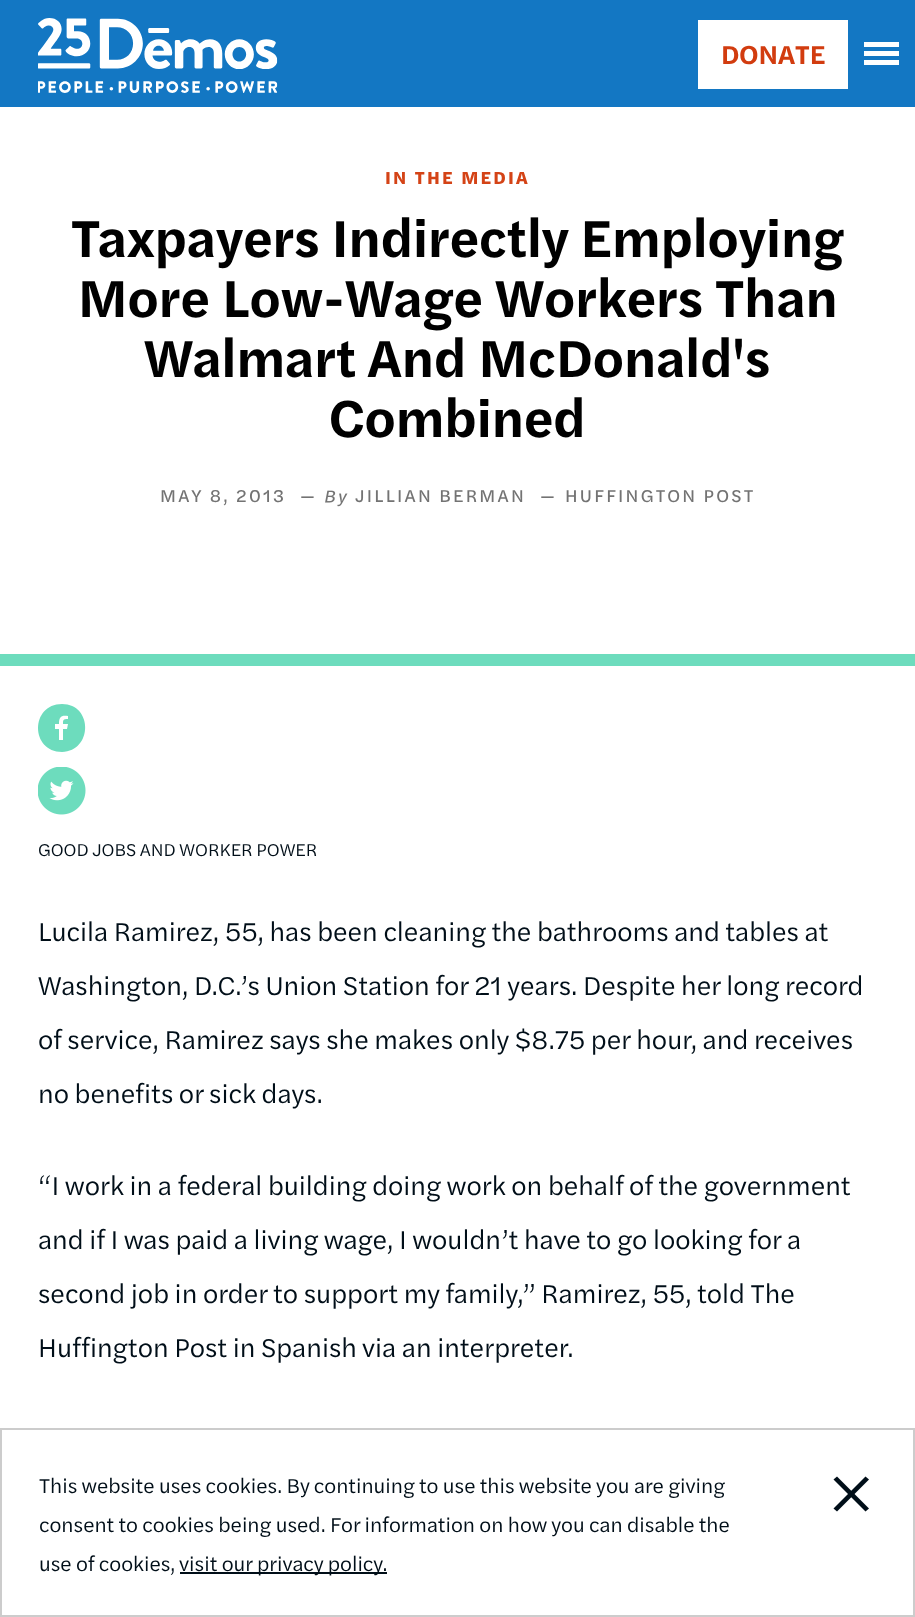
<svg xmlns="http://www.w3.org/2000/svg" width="915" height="1617">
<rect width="100%" height="100%" fill="#fff"/>
<rect width="915" height="107" fill="#1377c3"/>
<image x="38" y="18" width="240" height="75" href="media/1.png"/>
<rect x="698" y="20" width="150" height="69" fill="#fff"/>
<text x="721" y="64" style="font-family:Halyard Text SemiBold;font-size:27px;font-weight:600;fill:#d23c0f">DONATE</text>
<rect x="864" y="51" width="35" height="5" fill="#fff"/>
<rect x="864" y="42" width="35" height="5" fill="#fff"/>
<rect x="864" y="60" width="35" height="5" fill="#fff"/>
<rect y="654" width="915" height="12" fill="#6ddcbd"/>
<text x="385" y="184" style="font-family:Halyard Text;font-size:18px;font-weight:bold;letter-spacing:2.25px;fill:#d44316">IN THE MEDIA</text>
<text x="71" y="257" style="font-family:Halyard Text SemiBold;font-size:54px;font-weight:600;fill:#000">Taxpayers Indirectly Employing</text>
<text x="78" y="317" style="font-family:Halyard Text SemiBold;font-size:54px;font-weight:600;fill:#000">More Low-Wage Workers Than</text>
<text x="144" y="377" style="font-family:Halyard Text SemiBold;font-size:54px;font-weight:600;fill:#000">Walmart And McDonald's</text>
<text x="329" y="437" style="font-family:Halyard Text SemiBold;font-size:54px;font-weight:600;fill:#000">Combined</text>
<text x="160" y="502" style="font-family:Halyard Text;font-size:18px;letter-spacing:2.25px;fill:#737373">MAY 8, 2013</text>
<text x="300" y="502" style="font-family:Halyard Text;font-size:18px;letter-spacing:2.25px;fill:#737373">—</text>
<image x="325" y="490" width="23" height="17" href="media/2.png"/>
<text x="355" y="502" style="font-family:Halyard Text;font-size:18px;letter-spacing:2.25px;fill:#737373">JILLIAN BERMAN</text>
<text x="540" y="502" style="font-family:Halyard Text;font-size:18px;letter-spacing:2.25px;fill:#737373">—</text>
<text x="565" y="502" style="font-family:Halyard Text;font-size:18px;letter-spacing:2.25px;fill:#737373">HUFFINGTON POST</text>
<path d="M68 719c-5 0-5 1-5 5h5l-1 5h-4v11h-4v-11h-4v-5h4c0-7 2-9 9-8zm-6-15c-32 0-32 48 0 48c31-1 31-48 0-48z" fill="#6ddcbd" fill-rule="evenodd"/>
<image x="38" y="767" width="48" height="48" href="media/3.png"/>
<text x="38" y="856" style="font-family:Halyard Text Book;font-size:18px;fill:#000e18">GOOD JOBS AND WORKER POWER</text>
<text x="38" y="941" style="font-family:Halyard Text Book;font-size:27px;fill:#000e18">Lucila Ramirez, 55, has been cleaning the bathrooms and tables at</text>
<text x="38" y="995" style="font-family:Halyard Text Book;font-size:27px;fill:#000e18">Washington, D.C.’s Union Station for 21 years. Despite her long record</text>
<text x="38" y="1049" style="font-family:Halyard Text Book;font-size:27px;fill:#000e18">of service, Ramirez says she makes only $8.75 per hour, and receives</text>
<text x="38" y="1103" style="font-family:Halyard Text Book;font-size:27px;fill:#000e18">no benefits or sick days.</text>
<text x="38" y="1195" style="font-family:Halyard Text Book;font-size:27px;fill:#000e18">“I work in a federal building doing work on behalf of the government</text>
<text x="38" y="1249" style="font-family:Halyard Text Book;font-size:27px;fill:#000e18">and if I was paid a living wage, I wouldn’t have to go looking for a</text>
<text x="38" y="1303" style="font-family:Halyard Text Book;font-size:27px;fill:#000e18">second job in order to support my family,” Ramirez, 55, told The</text>
<text x="38" y="1357" style="font-family:Halyard Text Book;font-size:27px;fill:#000e18">Huffington Post in Spanish via an interpreter.</text>
<rect x="1" y="1429" width="913" height="187" fill="none" stroke="#ccc" stroke-width="2"/>
<text x="39" y="1493" style="font-family:Halyard Text Book;font-size:21px;fill:#000e18">This website uses cookies. By continuing to use this website you are giving</text>
<text x="39" y="1532" style="font-family:Halyard Text Book;font-size:21px;fill:#000e18">consent to cookies being used. For information on how you can disable the</text>
<text x="39" y="1571" style="font-family:Halyard Text Book;font-size:21px;fill:#000e18">use of cookies,</text>
<rect x="180" y="1572" width="207" height="2" fill="#000e18"/>
<text x="179" y="1571" style="font-family:Halyard Text Book;font-size:21px;fill:#000e18">visit our privacy policy.</text>
<path d="M865.5 1476.5l3.5 3l-32 32l-3.5-3z" fill="#000e18"/>
<path d="M833.5 1479.5l3.5-3l32 32l-3.5 3z" fill="#000e18"/>
</svg>
